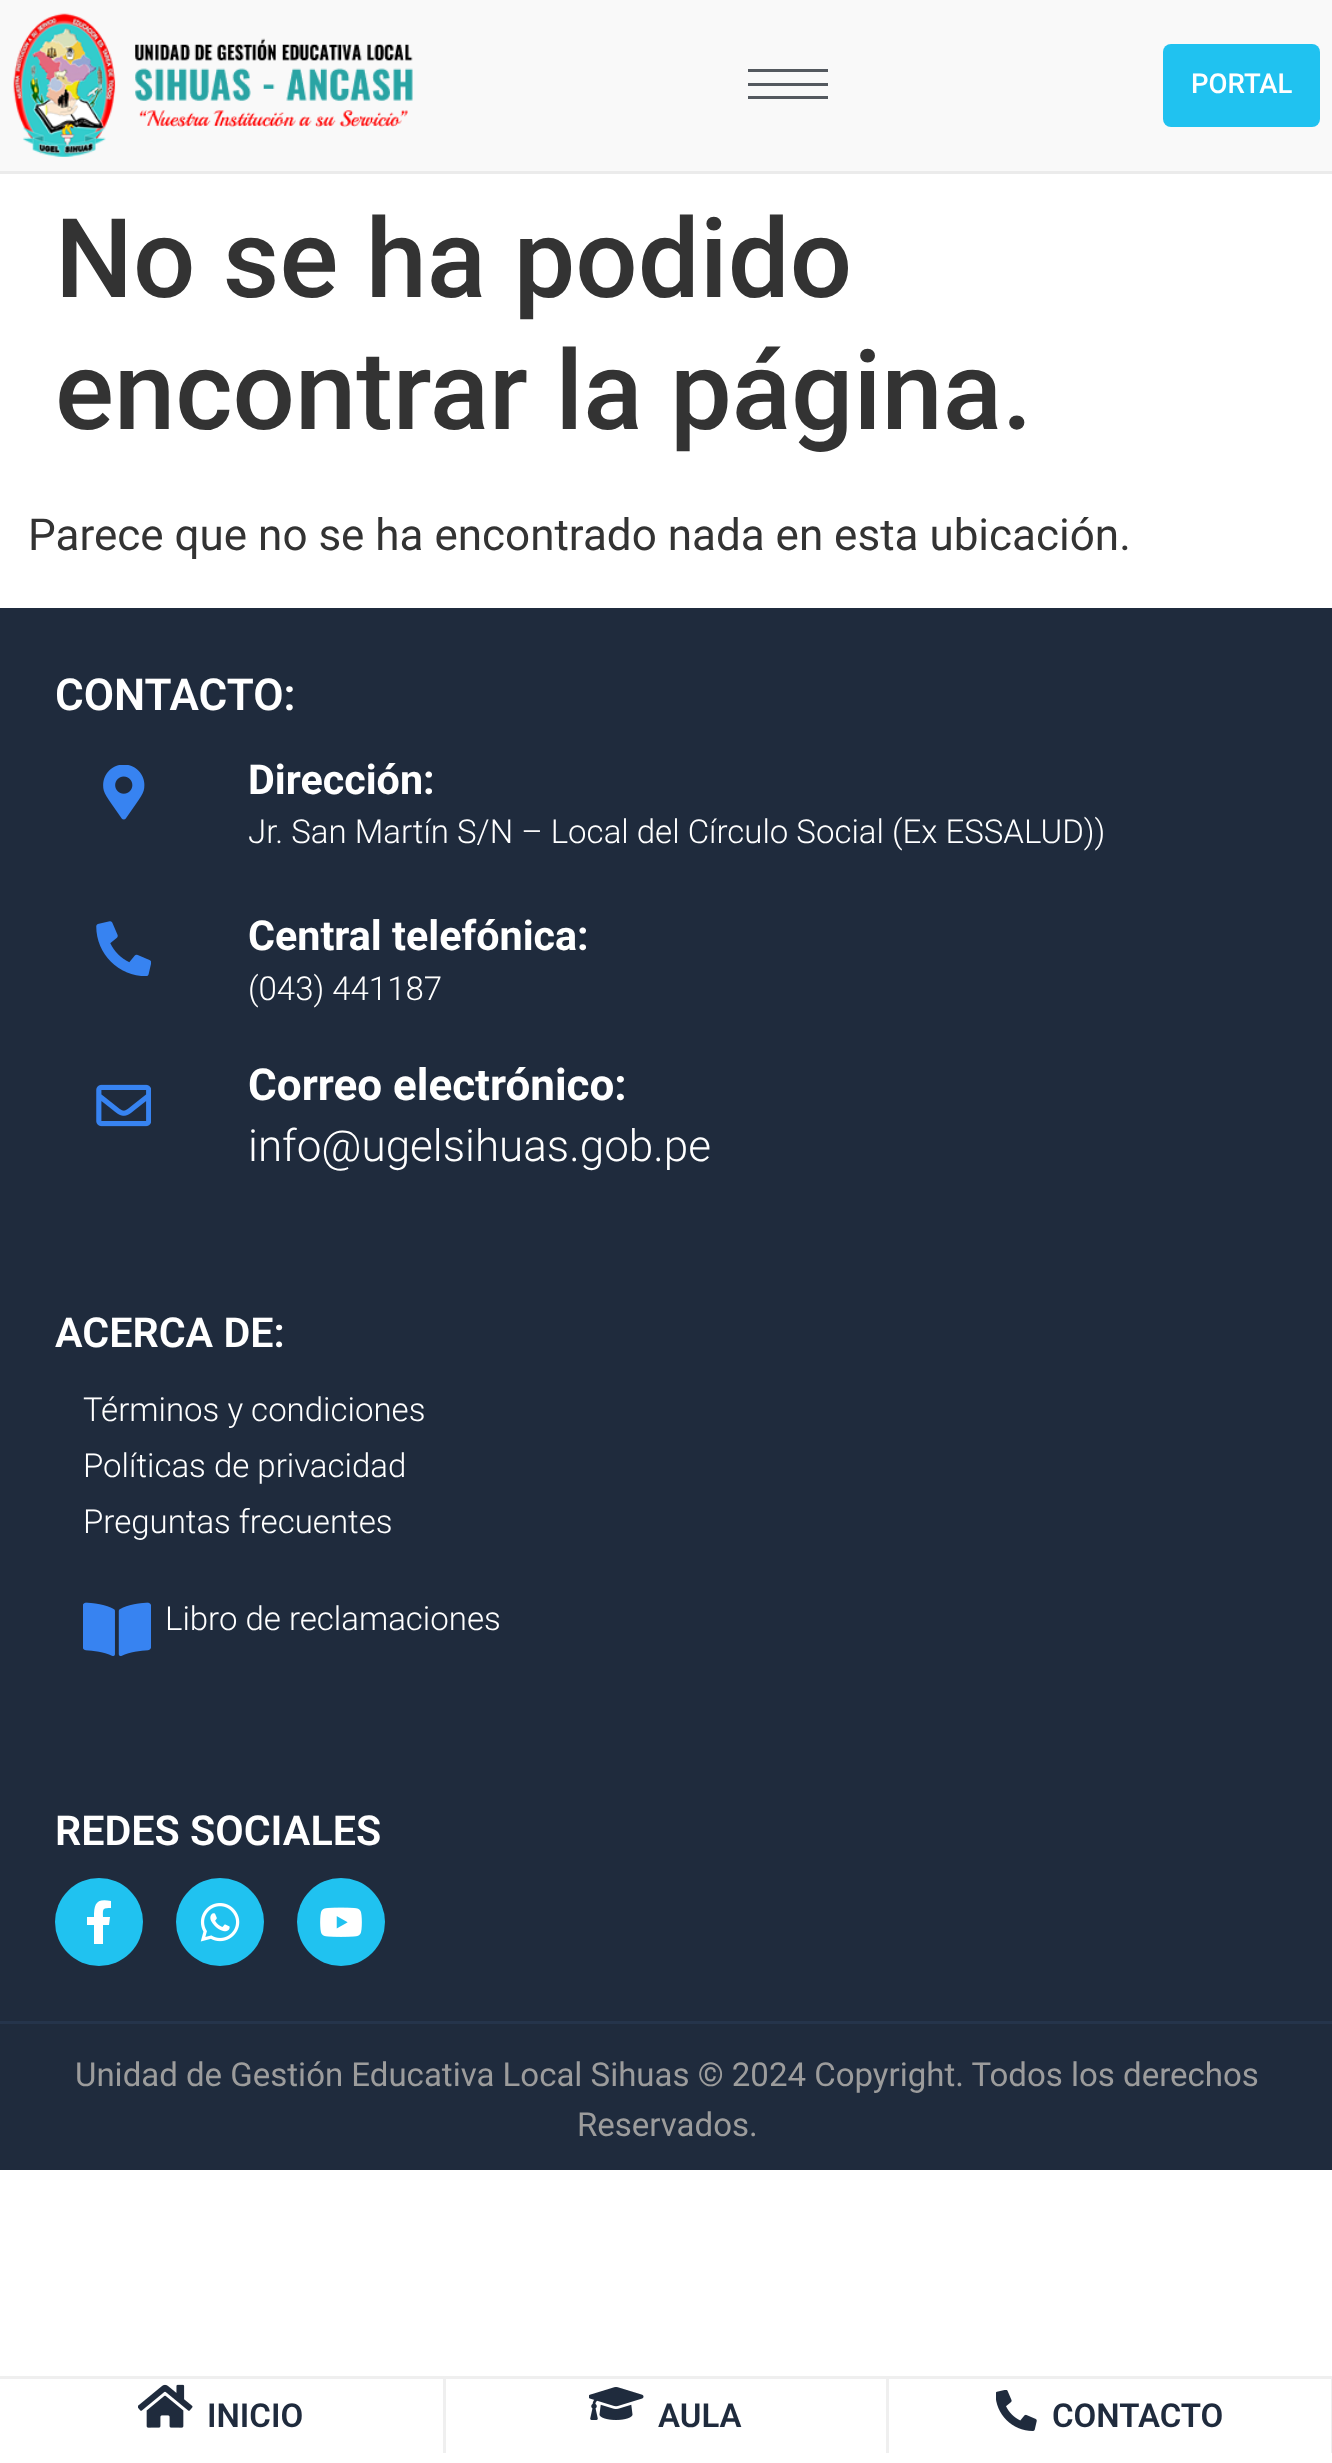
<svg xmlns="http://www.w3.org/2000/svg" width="1332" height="2463">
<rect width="100%" height="100%" fill="#fff"/>
<rect width="1332" height="171" fill="#f9f9f9"/>
<rect y="171" width="1332" height="3" fill="#ebebeb"/>
<image x="13" y="13" width="400" height="144" href="media/1.png"/>
<rect x="748" y="69" width="80" height="3" fill="#54595f"/>
<rect x="748" y="83" width="80" height="3" fill="#54595f"/>
<rect x="748" y="96" width="80" height="3" fill="#54595f"/>
<rect x="1163" y="44" width="157" height="83" rx="8" fill="#20c2f0"/>
<text x="1191" y="93" style="font-family:Roboto;font-size:27.5px;font-weight:500;fill:#fff">PORTAL</text>
<rect y="2376" width="1332" height="3" fill="#efefef"/>
<rect x="443" y="2379" width="3" height="74" fill="#efefef"/>
<image x="138" y="2384" width="55" height="44" href="media/2.png"/>
<text x="207" y="2427" style="font-family:Roboto;font-size:33px;font-weight:600;fill:#1f2b3d">INICIO</text>
<rect x="886" y="2379" width="3" height="74" fill="#efefef"/>
<image x="589" y="2387" width="55" height="33" href="media/3.png"/>
<text x="658" y="2427" style="font-family:Roboto;font-size:33px;font-weight:600;fill:#1f2b3d">AULA</text>
<rect x="1331" y="2379" width="1" height="74" fill="#efefef"/>
<image x="996" y="2390" width="41" height="41" href="media/4.png"/>
<text x="1052" y="2427" style="font-family:Roboto;font-size:33px;font-weight:600;fill:#1f2b3d">CONTACTO</text>
<text x="55" y="297" style="font-family:Roboto;font-size:110px;font-weight:500;fill:#333">No se ha podido</text>
<text x="55" y="429" style="font-family:Roboto;font-size:110px;font-weight:500;fill:#333">encontrar la página.</text>
<text x="28" y="550" style="font-family:Roboto;font-size:44px;fill:#333">Parece que no se ha encontrado nada en esta ubicación.</text>
<rect y="608" width="1332" height="1413" fill="#1f2b3d"/>
<text x="55" y="710" style="font-family:Roboto;font-size:44px;font-weight:600;fill:#fff">CONTACTO:</text>
<image x="103" y="765" width="42" height="55" href="media/5.png"/>
<text x="248" y="794" style="font-family:Roboto;font-size:41.25px;font-weight:bold;fill:#fff">Dirección:</text>
<text x="248" y="843" style="font-family:Roboto;font-size:33px;font-weight:300;fill:#fff">Jr. San Martín S/N – Local del Círculo Social (Ex ESSALUD))</text>
<image x="96" y="921" width="55" height="55" href="media/6.png"/>
<text x="248" y="950" style="font-family:Roboto;font-size:41.25px;font-weight:bold;fill:#fff">Central telefónica:</text>
<text x="248" y="1000" style="font-family:Roboto;font-size:33px;font-weight:300;fill:#fff">(043) 441187</text>
<image x="96" y="1084" width="55" height="43" href="media/7.png"/>
<text x="248" y="1100" style="font-family:Roboto;font-size:44px;font-weight:bold;fill:#fff">Correo electrónico:</text>
<text x="248" y="1161" style="font-family:Roboto;font-size:44px;font-weight:300;fill:#fff">info@ugelsihuas.gob.pe</text>
<text x="55" y="1347" style="font-family:Roboto;font-size:41.25px;font-weight:600;fill:#fff">ACERCA DE:</text>
<text x="83" y="1421" style="font-family:Roboto;font-size:33px;font-weight:300;fill:#fff">Términos y condiciones</text>
<text x="83" y="1477" style="font-family:Roboto;font-size:33px;font-weight:300;fill:#fff">Políticas de privacidad</text>
<text x="83" y="1533" style="font-family:Roboto;font-size:33px;font-weight:300;fill:#fff">Preguntas frecuentes</text>
<image x="83" y="1602" width="68" height="55" href="media/8.png"/>
<text x="165" y="1630" style="font-family:Roboto;font-size:33px;font-weight:300;fill:#fff">Libro de reclamaciones</text>
<text x="55" y="1845" style="font-family:Roboto;font-size:41.25px;font-weight:600;fill:#fff">REDES SOCIALES</text>
<circle cx="99" cy="1922" r="44" fill="#20c2f0"/>
<path d="M109 1925l1-8h-7c0-8-1-9 8-9v-7c-15-3-17 3-17 16h-7v8h7v19h9v-19z" fill="#fff"/>
<circle cx="220" cy="1922" r="44" fill="#20c2f0"/>
<image x="200" y="1903" width="40" height="39" href="media/9.png"/>
<circle cx="341" cy="1922" r="44" fill="#20c2f0"/>
<image x="320" y="1907" width="42" height="30" href="media/10.png"/>
<rect y="2024" width="1332" height="146" fill="#1f2b3d"/>
<rect y="2021" width="1332" height="3" fill="#25344b"/>
<text x="75" y="2086" style="font-family:Roboto;font-size:33px;fill:#9c9c9c">Unidad de Gestión Educativa Local Sihuas © 2024 Copyright. Todos los derechos</text>
<text x="577" y="2136" style="font-family:Roboto;font-size:33px;fill:#9c9c9c">Reservados.</text>
</svg>
